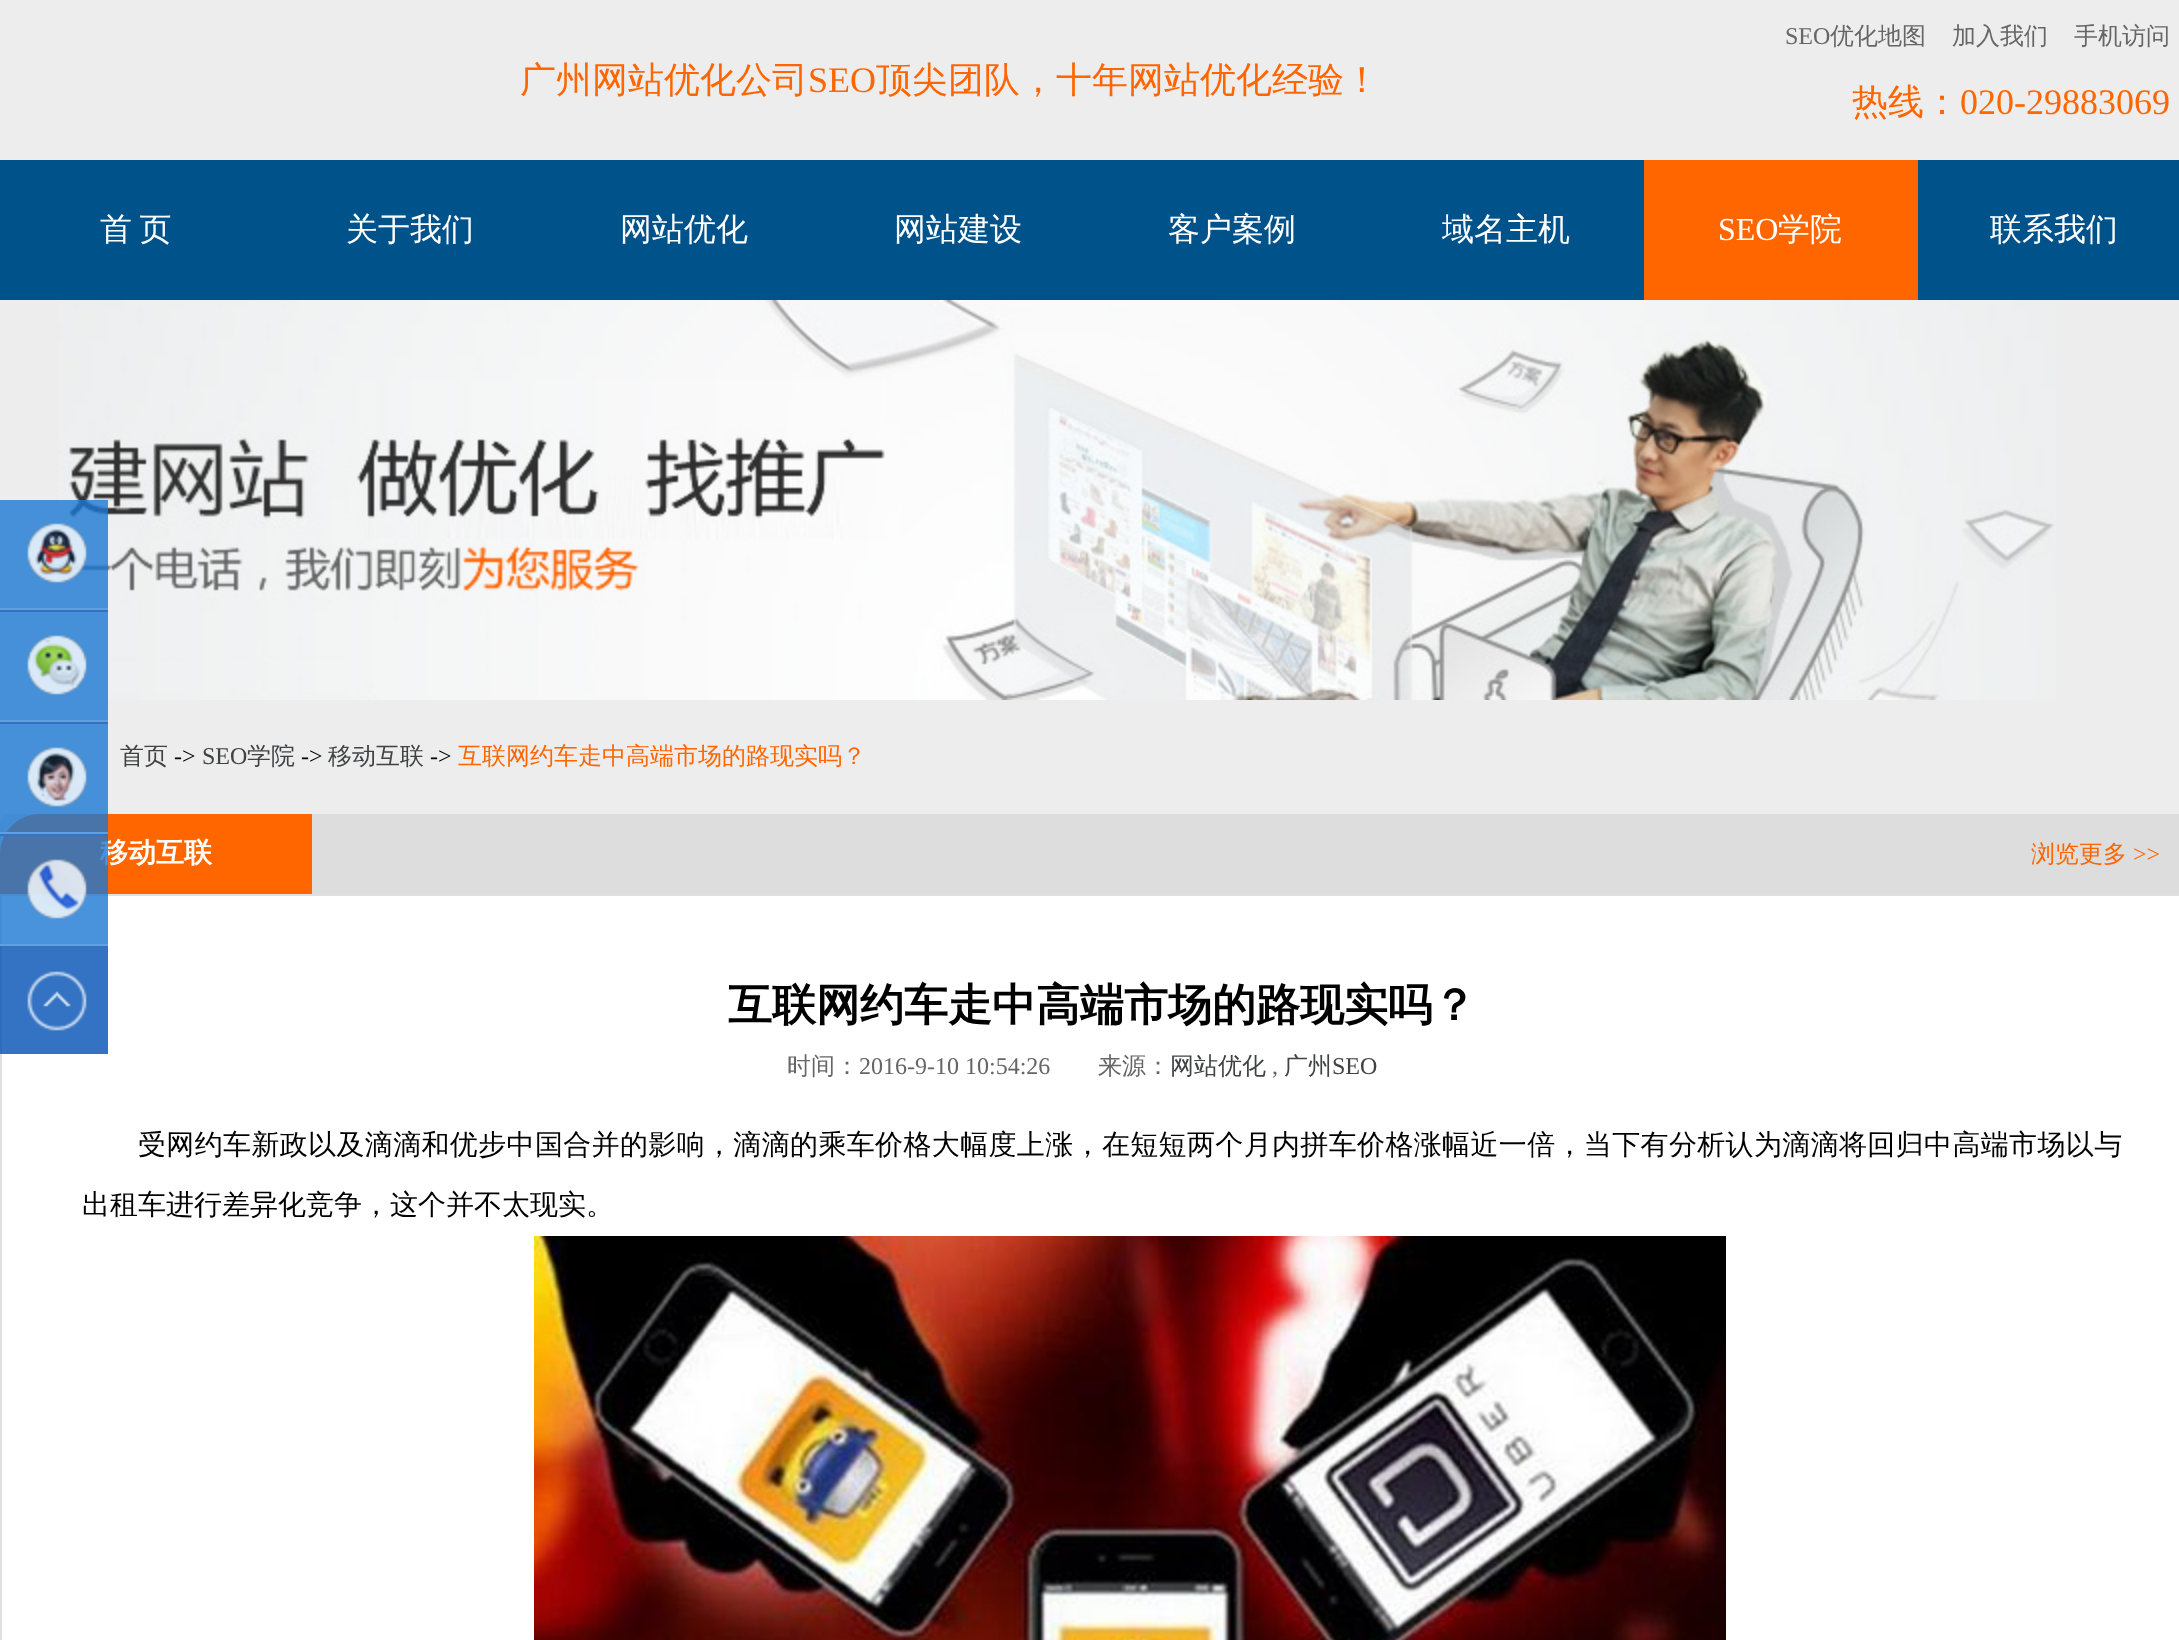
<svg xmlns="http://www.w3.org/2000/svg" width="2179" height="1640">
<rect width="100%" height="100%" fill="#ededed"/>
<text x="520" y="92" style="font-family:WenQuanYi Zen Hei;font-size:36px;font-weight:500;fill:#f60">广州网站优化公司</text>
<text x="808" y="92" style="font-family:Liberation Serif;font-size:36px;fill:#f60">SEO</text>
<text x="876" y="92" style="font-family:WenQuanYi Zen Hei;font-size:36px;font-weight:500;fill:#f60">顶尖团队，十年网站优化经验！</text>
<text x="1785" y="44" style="font-family:Liberation Serif;font-size:24px;fill:#666">SEO</text>
<text x="1830" y="44" style="font-family:WenQuanYi Zen Hei;font-size:24px;font-weight:500;fill:#666">优化地图</text>
<text x="1952" y="44" style="font-family:WenQuanYi Zen Hei;font-size:24px;font-weight:500;fill:#666">加入我们</text>
<text x="2074" y="44" style="font-family:WenQuanYi Zen Hei;font-size:24px;font-weight:500;fill:#666">手机访问</text>
<text x="1852" y="114" style="font-family:WenQuanYi Zen Hei;font-size:36px;font-weight:500;fill:#f60">热线：</text>
<text x="1960" y="114" style="font-family:Liberation Serif;font-size:36px;fill:#f60">020-29883069</text>
<rect y="160" width="2179" height="140" fill="#00528a"/>
<text x="100" y="240" word-spacing="-2" style="font-family:WenQuanYi Zen Hei;font-size:32px;font-weight:500;fill:#fff">首 页</text>
<text x="346" y="240" style="font-family:WenQuanYi Zen Hei;font-size:32px;font-weight:500;fill:#fff">关于我们</text>
<text x="620" y="240" style="font-family:WenQuanYi Zen Hei;font-size:32px;font-weight:500;fill:#fff">网站优化</text>
<text x="894" y="240" style="font-family:WenQuanYi Zen Hei;font-size:32px;font-weight:500;fill:#fff">网站建设</text>
<text x="1168" y="240" style="font-family:WenQuanYi Zen Hei;font-size:32px;font-weight:500;fill:#fff">客户案例</text>
<text x="1442" y="240" style="font-family:WenQuanYi Zen Hei;font-size:32px;font-weight:500;fill:#fff">域名主机</text>
<rect x="1644" y="160" width="274" height="140" fill="#f60"/>
<text x="1718" y="240" style="font-family:Liberation Serif;font-size:32px;fill:#fff">SEO</text>
<text x="1778" y="240" style="font-family:WenQuanYi Zen Hei;font-size:32px;font-weight:500;fill:#fff">学院</text>
<text x="1990" y="240" style="font-family:WenQuanYi Zen Hei;font-size:32px;font-weight:500;fill:#fff">联系我们</text>
<image x="58" y="300" width="1998" height="400" href="media/6.png"/>
<rect y="608" width="108" height="2" fill="#61a0e0"/>
<rect y="500" width="108" height="108" fill="#1b78d3cc"/>
<image x="27" y="523" width="60" height="60" href="media/1.png"/>
<rect y="610" width="108" height="2" fill="#3373c3"/>
<rect y="720" width="108" height="2" fill="#61a0e0"/>
<rect y="612" width="108" height="108" fill="#1b78d3cc"/>
<image x="27" y="635" width="60" height="60" href="media/2.png"/>
<rect y="722" width="108" height="2" fill="#3373c3"/>
<path d="M10 814h2169c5.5 0 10 4.5 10 10v70h-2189v-70c0-5.5 4.5-10 10-10z" fill="#ddd"/>
<path d="M40 814h272v80h-312v-40c0-22 18-40 40-40z" fill="#f60"/>
<rect y="832" width="108" height="2" fill="#61a0e0"/>
<rect y="724" width="108" height="108" fill="#1b78d3cc"/>
<image x="27" y="747" width="60" height="60" href="media/3.png"/>
<rect y="834" width="108" height="2" fill="#3373c3"/>
<rect x="1" y="895" width="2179" height="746" fill="#fff" stroke="#e0e0e0" stroke-width="2"/>
<rect y="944" width="108" height="2" fill="#61a0e0"/>
<text x="100" y="862" style="font-family:WenQuanYi Zen Hei;font-size:28px;font-weight:bold;fill:#fff">移动互联</text>
<rect y="836" width="108" height="108" fill="#1b78d3cc"/>
<image x="27" y="859" width="60" height="60" href="media/4.png"/>
<rect y="946" width="108" height="108" fill="#0150b5cc"/>
<image x="27" y="971" width="60" height="60" href="media/5.png"/>
<text x="120" y="764" style="font-family:WenQuanYi Zen Hei;font-size:24px;font-weight:500;fill:#404243">首页</text>
<text x="174" y="764" style="font-family:Liberation Serif;font-size:24px;fill:#000">-&gt;</text>
<text x="202" y="764" style="font-family:Liberation Serif;font-size:24px;fill:#404243">SEO</text>
<text x="247" y="764" style="font-family:WenQuanYi Zen Hei;font-size:24px;font-weight:500;fill:#404243">学院</text>
<text x="301" y="764" style="font-family:Liberation Serif;font-size:24px;fill:#000">-&gt;</text>
<text x="328" y="764" style="font-family:WenQuanYi Zen Hei;font-size:24px;font-weight:500;fill:#404243">移动互联</text>
<text x="430" y="764" style="font-family:Liberation Serif;font-size:24px;fill:#000">-&gt;</text>
<text x="458" y="764" style="font-family:WenQuanYi Zen Hei;font-size:24px;font-weight:500;fill:#f60">互联网约车走中高端市场的路现实吗？</text>
<text x="2031" y="862" style="font-family:WenQuanYi Zen Hei;font-size:24px;font-weight:500;fill:#f60">浏览更多</text>
<text x="2133" y="862" style="font-family:Liberation Serif;font-size:24px;fill:#f60">&gt;&gt;</text>
<text x="728" y="1020" style="font-family:WenQuanYi Zen Hei;font-size:44px;font-weight:bold;fill:#000">互联网约车走中高端市场的路现实吗？</text>
<text x="787" y="1074" style="font-family:WenQuanYi Zen Hei;font-size:24px;font-weight:500;fill:#666">时间：</text>
<text x="859" y="1074" style="font-family:Liberation Serif;font-size:24px;fill:#666">2016-9-10 10:54:26</text>
<text x="1098" y="1074" style="font-family:WenQuanYi Zen Hei;font-size:24px;font-weight:500;fill:#666">来源：</text>
<text x="1170" y="1074" style="font-family:WenQuanYi Zen Hei;font-size:24px;font-weight:500;fill:#404243">网站优化</text>
<text x="1272" y="1074" style="font-family:Liberation Serif;font-size:24px;fill:#666">,</text>
<text x="1284" y="1074" style="font-family:WenQuanYi Zen Hei;font-size:24px;font-weight:500;fill:#404243">广州</text>
<text x="1332" y="1074" style="font-family:Liberation Serif;font-size:24px;fill:#404243">SEO</text>
<text x="138" y="1154" style="font-family:WenQuanYi Zen Hei;font-size:28px;font-weight:500;letter-spacing:0.35px;fill:#000">受网约车新政以及滴滴和优步中国合并的影响，滴滴的乘车价格大幅度上涨，在短短两个月内拼车价格涨幅近一倍，当下有分析认为滴滴将回归中高端市场以与</text>
<text x="82" y="1214" style="font-family:WenQuanYi Zen Hei;font-size:28px;font-weight:500;fill:#000">出租车进行差异化竞争，这个并不太现实。</text>
<image x="534" y="1236" width="1192" height="404" href="media/7.png"/>
</svg>
